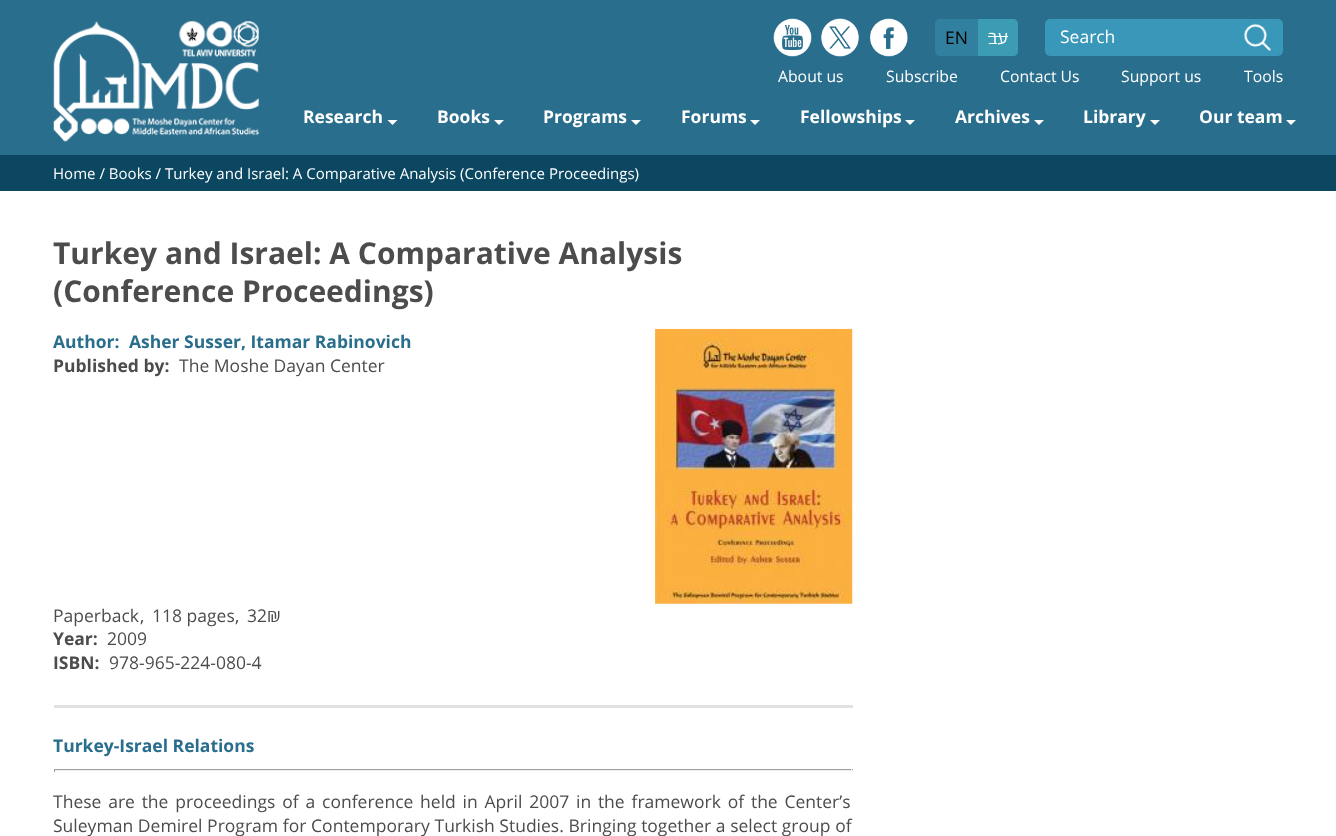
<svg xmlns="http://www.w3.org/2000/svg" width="1336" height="836">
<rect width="100%" height="100%" fill="#fff"/>
<rect width="1336" height="155" fill="#2a6e8d"/>
<image x="53" y="21" width="206" height="121" href="media/1.png"/>
<image x="773" y="18" width="39" height="39" href="media/2.png"/>
<image x="821" y="18" width="38" height="39" href="media/3.png"/>
<image x="870" y="18" width="38" height="39" href="media/4.png"/>
<path d="M940 19h38v37h-38c-3 0-5-2-5-5v-27c0-3 2-5 5-5z" fill="#31809f"/>
<text x="945" y="44" style="font-family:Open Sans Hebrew;font-size:17.5px;fill:#000">EN</text>
<path d="M978 19h35c3 0 5 2 5 5v27c0 3-2 5-5 5h-35z" fill="#3c9cb3"/>
<text x="1008" y="44" style="font-family:Open Sans Hebrew;font-size:17.5px;direction:rtl;fill:#fff">עב</text>
<rect x="988" y="36" width="20" height="1" fill="#fff"/>
<rect x="1045" y="19" width="238" height="37" rx="5" fill="#3997b9"/>
<text x="1060" y="43" style="font-family:Open Sans Hebrew;font-size:17.5px;fill:#fff">Search</text>
<image x="1243" y="23" width="29" height="29" href="media/5.png"/>
<text x="778" y="82" style="font-family:Open Sans Hebrew;font-size:15.75px;fill:#fff">About us</text>
<text x="886" y="82" style="font-family:Open Sans Hebrew;font-size:15.75px;fill:#fff">Subscribe</text>
<text x="1000" y="82" style="font-family:Open Sans Hebrew;font-size:15.75px;fill:#fff">Contact Us</text>
<text x="1121" y="82" style="font-family:Open Sans Hebrew;font-size:15.75px;fill:#fff">Support us</text>
<text x="1244" y="82" style="font-family:Open Sans Hebrew;font-size:15.75px;fill:#fff">Tools</text>
<text x="303" y="123" style="font-family:Open Sans Hebrew;font-size:17.5px;font-weight:bold;fill:#fff">Research</text>
<path d="M387.5 120h10l-5 5z" fill="#fff"/>
<text x="437" y="123" style="font-family:Open Sans Hebrew;font-size:17.5px;font-weight:bold;fill:#fff">Books</text>
<path d="M494 120h10l-5 5z" fill="#fff"/>
<text x="543" y="123" style="font-family:Open Sans Hebrew;font-size:17.5px;font-weight:bold;fill:#fff">Programs</text>
<path d="M631 120h10l-5 5z" fill="#fff"/>
<text x="681" y="123" style="font-family:Open Sans Hebrew;font-size:17.5px;font-weight:bold;fill:#fff">Forums</text>
<path d="M750 120h10l-5 5z" fill="#fff"/>
<text x="800" y="123" style="font-family:Open Sans Hebrew;font-size:17.5px;font-weight:bold;fill:#fff">Fellowships</text>
<path d="M905 120h10l-5 5z" fill="#fff"/>
<text x="955" y="123" style="font-family:Open Sans Hebrew;font-size:17.5px;font-weight:bold;fill:#fff">Archives</text>
<path d="M1034 120h10l-5 5z" fill="#fff"/>
<text x="1083" y="123" style="font-family:Open Sans Hebrew;font-size:17.5px;font-weight:bold;fill:#fff">Library</text>
<path d="M1150 120h10l-5 5z" fill="#fff"/>
<text x="1199" y="123" style="font-family:Open Sans Hebrew;font-size:17.5px;font-weight:bold;fill:#fff">Our team</text>
<path d="M1286 120h10l-5 5z" fill="#fff"/>
<rect y="155" width="1336" height="36" fill="#0c4762"/>
<text x="53" y="179" style="font-family:Open Sans Hebrew;font-size:15px;fill:#fff">Home / Books / Turkey and Israel: A Comparative Analysis (Conference Proceedings)</text>
<text x="53" y="264" style="font-family:Open Sans Hebrew;font-size:30px;font-weight:bold;fill:#4c4c4c">Turkey and Israel: A Comparative Analysis</text>
<text x="53" y="302" style="font-family:Open Sans Hebrew;font-size:30px;font-weight:bold;fill:#4c4c4c">(Conference Proceedings)</text>
<rect x="54" y="705" width="799" height="3" fill="#e2e2e2"/>
<text x="53" y="348" style="font-family:Open Sans Hebrew;font-size:17.5px;font-weight:bold;fill:#2a6e8d">Author:</text>
<text x="129" y="348" style="font-family:Open Sans Hebrew;font-size:17.5px;font-weight:bold;fill:#2a6e8d">Asher Susser, Itamar Rabinovich</text>
<image x="655" y="328" width="198" height="276" href="media/6.png"/>
<text x="53" y="372" style="font-family:Open Sans Hebrew;font-size:17.5px;font-weight:bold;fill:#4c4c4c">Published by:</text>
<text x="179" y="372" style="font-family:Open Sans Hebrew;font-size:17.5px;fill:#4c4c4c">The Moshe Dayan Center</text>
<text x="53" y="622" style="font-family:Open Sans Hebrew;font-size:17.5px;fill:#4c4c4c">Paperback</text>
<text x="140" y="622" style="font-family:Open Sans Hebrew;font-size:17.5px;fill:#4c4c4c">,</text>
<text x="152" y="622" style="font-family:Open Sans Hebrew;font-size:17.5px;fill:#4c4c4c">118 pages</text>
<text x="235" y="622" style="font-family:Open Sans Hebrew;font-size:17.5px;fill:#4c4c4c">,</text>
<text x="247" y="622" style="font-family:Open Sans Hebrew;font-size:17.5px;fill:#4c4c4c">32₪</text>
<text x="53" y="645" style="font-family:Open Sans Hebrew;font-size:17.5px;font-weight:bold;fill:#4c4c4c">Year:</text>
<text x="107" y="645" style="font-family:Open Sans Hebrew;font-size:17.5px;fill:#4c4c4c">2009</text>
<text x="53" y="669" style="font-family:Open Sans Hebrew;font-size:17.5px;font-weight:bold;fill:#4c4c4c">ISBN:</text>
<text x="109" y="669" style="font-family:Open Sans Hebrew;font-size:17.5px;fill:#4c4c4c">978-965-224-080-4</text>
<text x="53" y="752" style="font-family:Open Sans Hebrew;font-size:17.5px;font-weight:bold;fill:#2a6e8d">Turkey-Israel Relations</text>
<rect x="54" y="769" width="799" height="1" fill="#9f9f9f"/>
<rect x="851" y="769" width="1" height="3" fill="#eee"/>
<rect x="54" y="770" width="799" height="1" fill="#eee"/>
<rect x="54" y="769" width="1" height="3" fill="#9f9f9f"/>
<text x="53" y="808" word-spacing="2.25" style="font-family:Open Sans Hebrew;font-size:17.5px;fill:#4c4c4c">These are the proceedings of a conference held in April 2007 in the framework of the Center’s</text>
<text x="53" y="832" word-spacing="0.1" style="font-family:Open Sans Hebrew;font-size:17.5px;fill:#4c4c4c">Suleyman Demirel Program for Contemporary Turkish Studies. Bringing together a select group of</text>
</svg>
